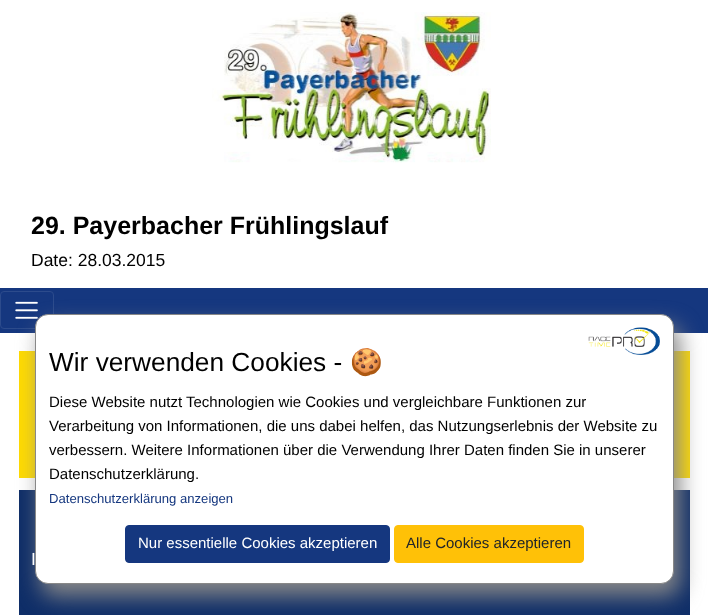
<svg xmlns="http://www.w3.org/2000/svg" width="708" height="615">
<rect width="100%" height="100%" fill="#fff"/>
<image x="212" y="12" width="279" height="151" href="media/1.png"/>
<text x="31" y="234" style="font-family:Liberation Sans;font-size:25px;font-weight:bold;fill:#000">29. Payerbacher Frühlingslauf</text>
<text x="31" y="266" style="font-family:Liberation Sans;font-size:17.5px;fill:#000">Date: 28.03.2015</text>
<rect y="288" width="708" height="45" fill="#15377f"/>
<rect x="0.5" y="291.5" width="53" height="37" rx="3.5" fill="none" stroke="#2c4b8c"/>
<image x="15" y="301" width="23" height="18" href="media/2.png"/>
<rect x="19" y="351" width="671" height="127" fill="#ffdb00"/>
<rect x="19" y="490" width="671" height="125" fill="#0f2e68"/>
<rect x="41" y="326" width="639" height="270" rx="13" fill="#888" filter="blur(11px)"/>
<rect x="35.5" y="314.5" width="638" height="269" rx="12.5" fill="#fff" stroke="#888"/>
<image x="588" y="327" width="72" height="28" href="media/3.png"/>
<text x="49" y="371" style="font-family:Liberation Sans;font-size:26.25px;fill:#000">Wir verwenden Cookies -</text>
<text x="350" y="371" style="font-family:Noto Color Emoji;font-size:26.25px;fill:#000">🍪</text>
<text x="49" y="407" style="font-family:Liberation Sans;font-size:15px;fill:#000">Diese Website nutzt Technologien wie Cookies und vergleichbare Funktionen zur</text>
<text x="49" y="431" style="font-family:Liberation Sans;font-size:15px;fill:#000">Verarbeitung von Informationen, die uns dabei helfen, das Nutzungserlebnis der Website zu</text>
<text x="49" y="455" style="font-family:Liberation Sans;font-size:15px;fill:#000">verbessern. Weitere Informationen über die Verwendung Ihrer Daten finden Sie in unserer</text>
<text x="49" y="479" style="font-family:Liberation Sans;font-size:15px;fill:#000">Datenschutzerklärung.</text>
<text x="49" y="503" style="font-family:Liberation Sans;font-size:13.1px;fill:#15377f">Datenschutzerklärung anzeigen</text>
<rect x="125.5" y="525.5" width="264" height="37" rx="3.5" fill="#15377f" stroke="#15377f"/>
<text x="138" y="548" style="font-family:Liberation Sans;font-size:15px;fill:#fff">Nur essentielle Cookies akzeptieren</text>
<rect x="394.5" y="525.5" width="189" height="37" rx="3.5" fill="#ffc107" stroke="#ffc107"/>
<text x="406" y="548" style="font-family:Liberation Sans;font-size:15px;fill:#212529">Alle Cookies akzeptieren</text>
<text x="31" y="565" style="font-family:Liberation Sans;font-size:17.5px;fill:#fff">I</text>
</svg>
